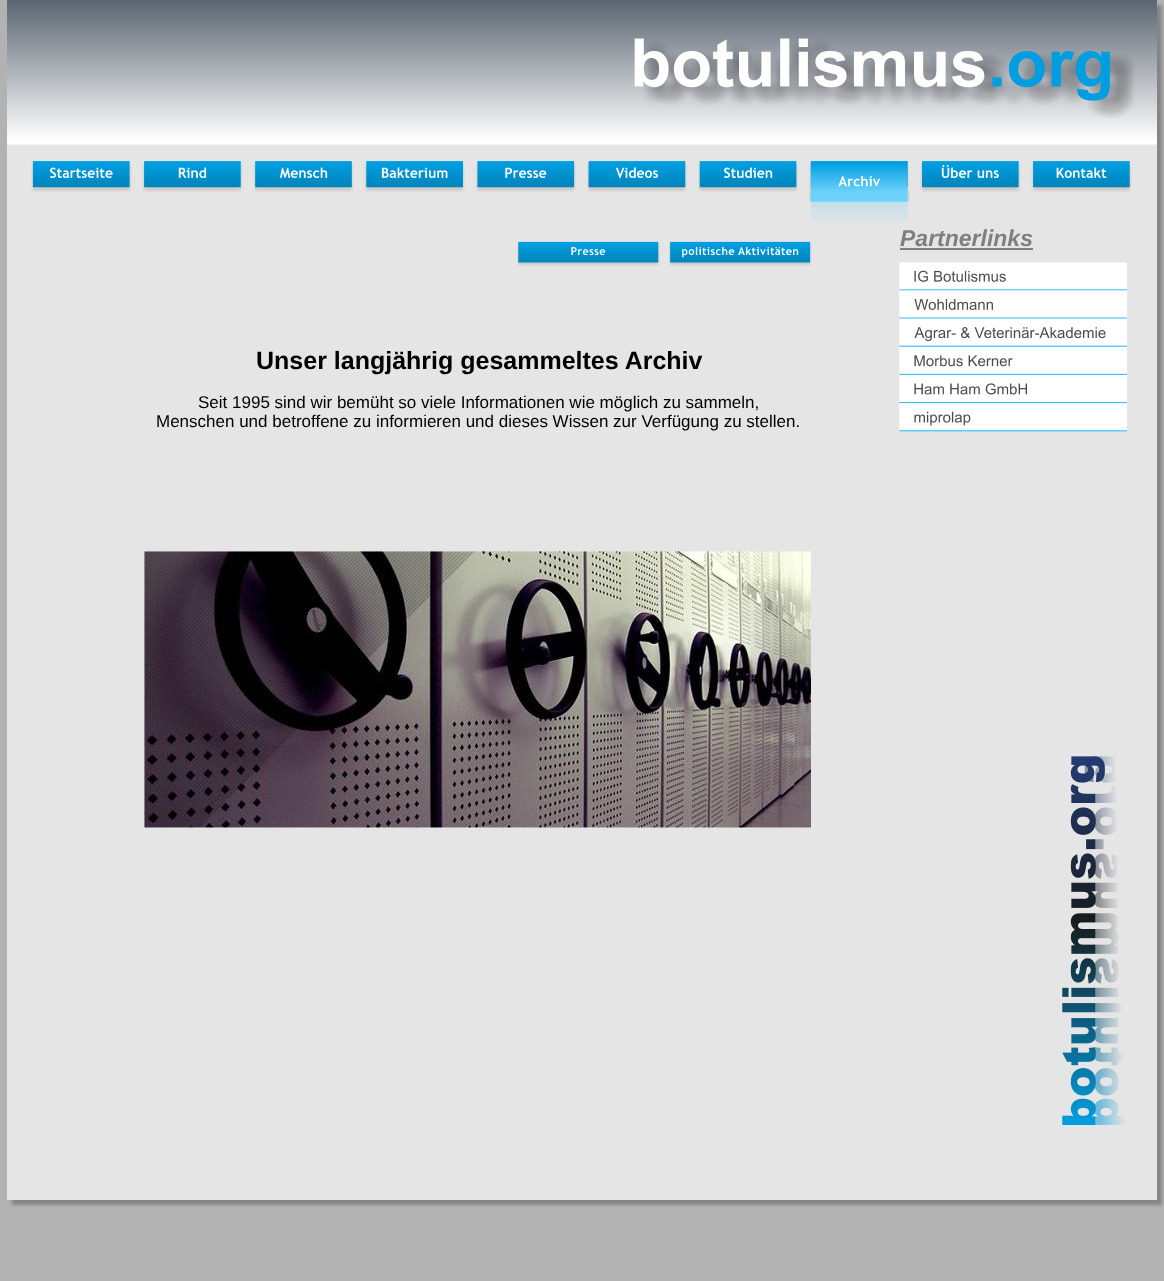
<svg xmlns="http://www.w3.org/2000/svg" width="1164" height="1281">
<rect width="100%" height="100%" fill="#b2b2b2"/>
<image x="7" y="3" width="1157" height="1204" href="media/1.png"/>
<image x="7" y="0" width="1150" height="145" href="media/2.png"/>
<image x="31" y="161" width="101" height="31" href="media/3.png"/>
<image x="142" y="161" width="101" height="31" href="media/4.png"/>
<image x="253" y="161" width="101" height="31" href="media/5.png"/>
<image x="364" y="161" width="101" height="31" href="media/6.png"/>
<image x="476" y="161" width="100" height="31" href="media/7.png"/>
<image x="587" y="161" width="100" height="31" href="media/8.png"/>
<image x="698" y="161" width="100" height="31" href="media/9.png"/>
<image x="809" y="161" width="100" height="30" href="media/10.png"/>
<image x="809" y="161" width="101" height="62" href="media/11.png"/>
<image x="920" y="161" width="101" height="31" href="media/12.png"/>
<image x="1031" y="161" width="101" height="31" href="media/13.png"/>
<text x="900" y="246" style="font-family:Liberation Sans;font-size:23px;font-weight:bold;font-style:italic;fill:#7f7f7f">Partnerlinks</text>
<rect x="900" y="248" width="133" height="2" fill="#7f7f7f"/>
<image x="517" y="241" width="143" height="25" href="media/14.png"/>
<image x="669" y="241" width="143" height="25" href="media/15.png"/>
<image x="899" y="262" width="228" height="29" href="media/16.png"/>
<image x="899" y="290" width="228" height="29" href="media/17.png"/>
<image x="899" y="318" width="228" height="29" href="media/18.png"/>
<text x="256" y="369" style="font-family:Liberation Sans;font-size:25px;font-weight:bold;fill:#000">Unser langjährig gesammeltes Archiv</text>
<text x="198" y="408" style="font-family:Liberation Sans;font-size:17px;fill:#000">Seit 1995 sind wir bemüht so viele Informationen wie möglich zu sammeln,</text>
<text x="156" y="427" style="font-family:Liberation Sans;font-size:17px;fill:#000">Menschen und betroffene zu informieren und dieses Wissen zur Verfügung zu stellen.</text>
<image x="899" y="346" width="228" height="30" href="media/19.png"/>
<image x="899" y="375" width="228" height="29" href="media/20.png"/>
<image x="899" y="403" width="228" height="29" href="media/21.png"/>
<image x="144" y="551" width="667" height="277" href="media/22.png"/>
<image x="1062" y="756" width="63" height="369" href="media/23.png"/>
</svg>
